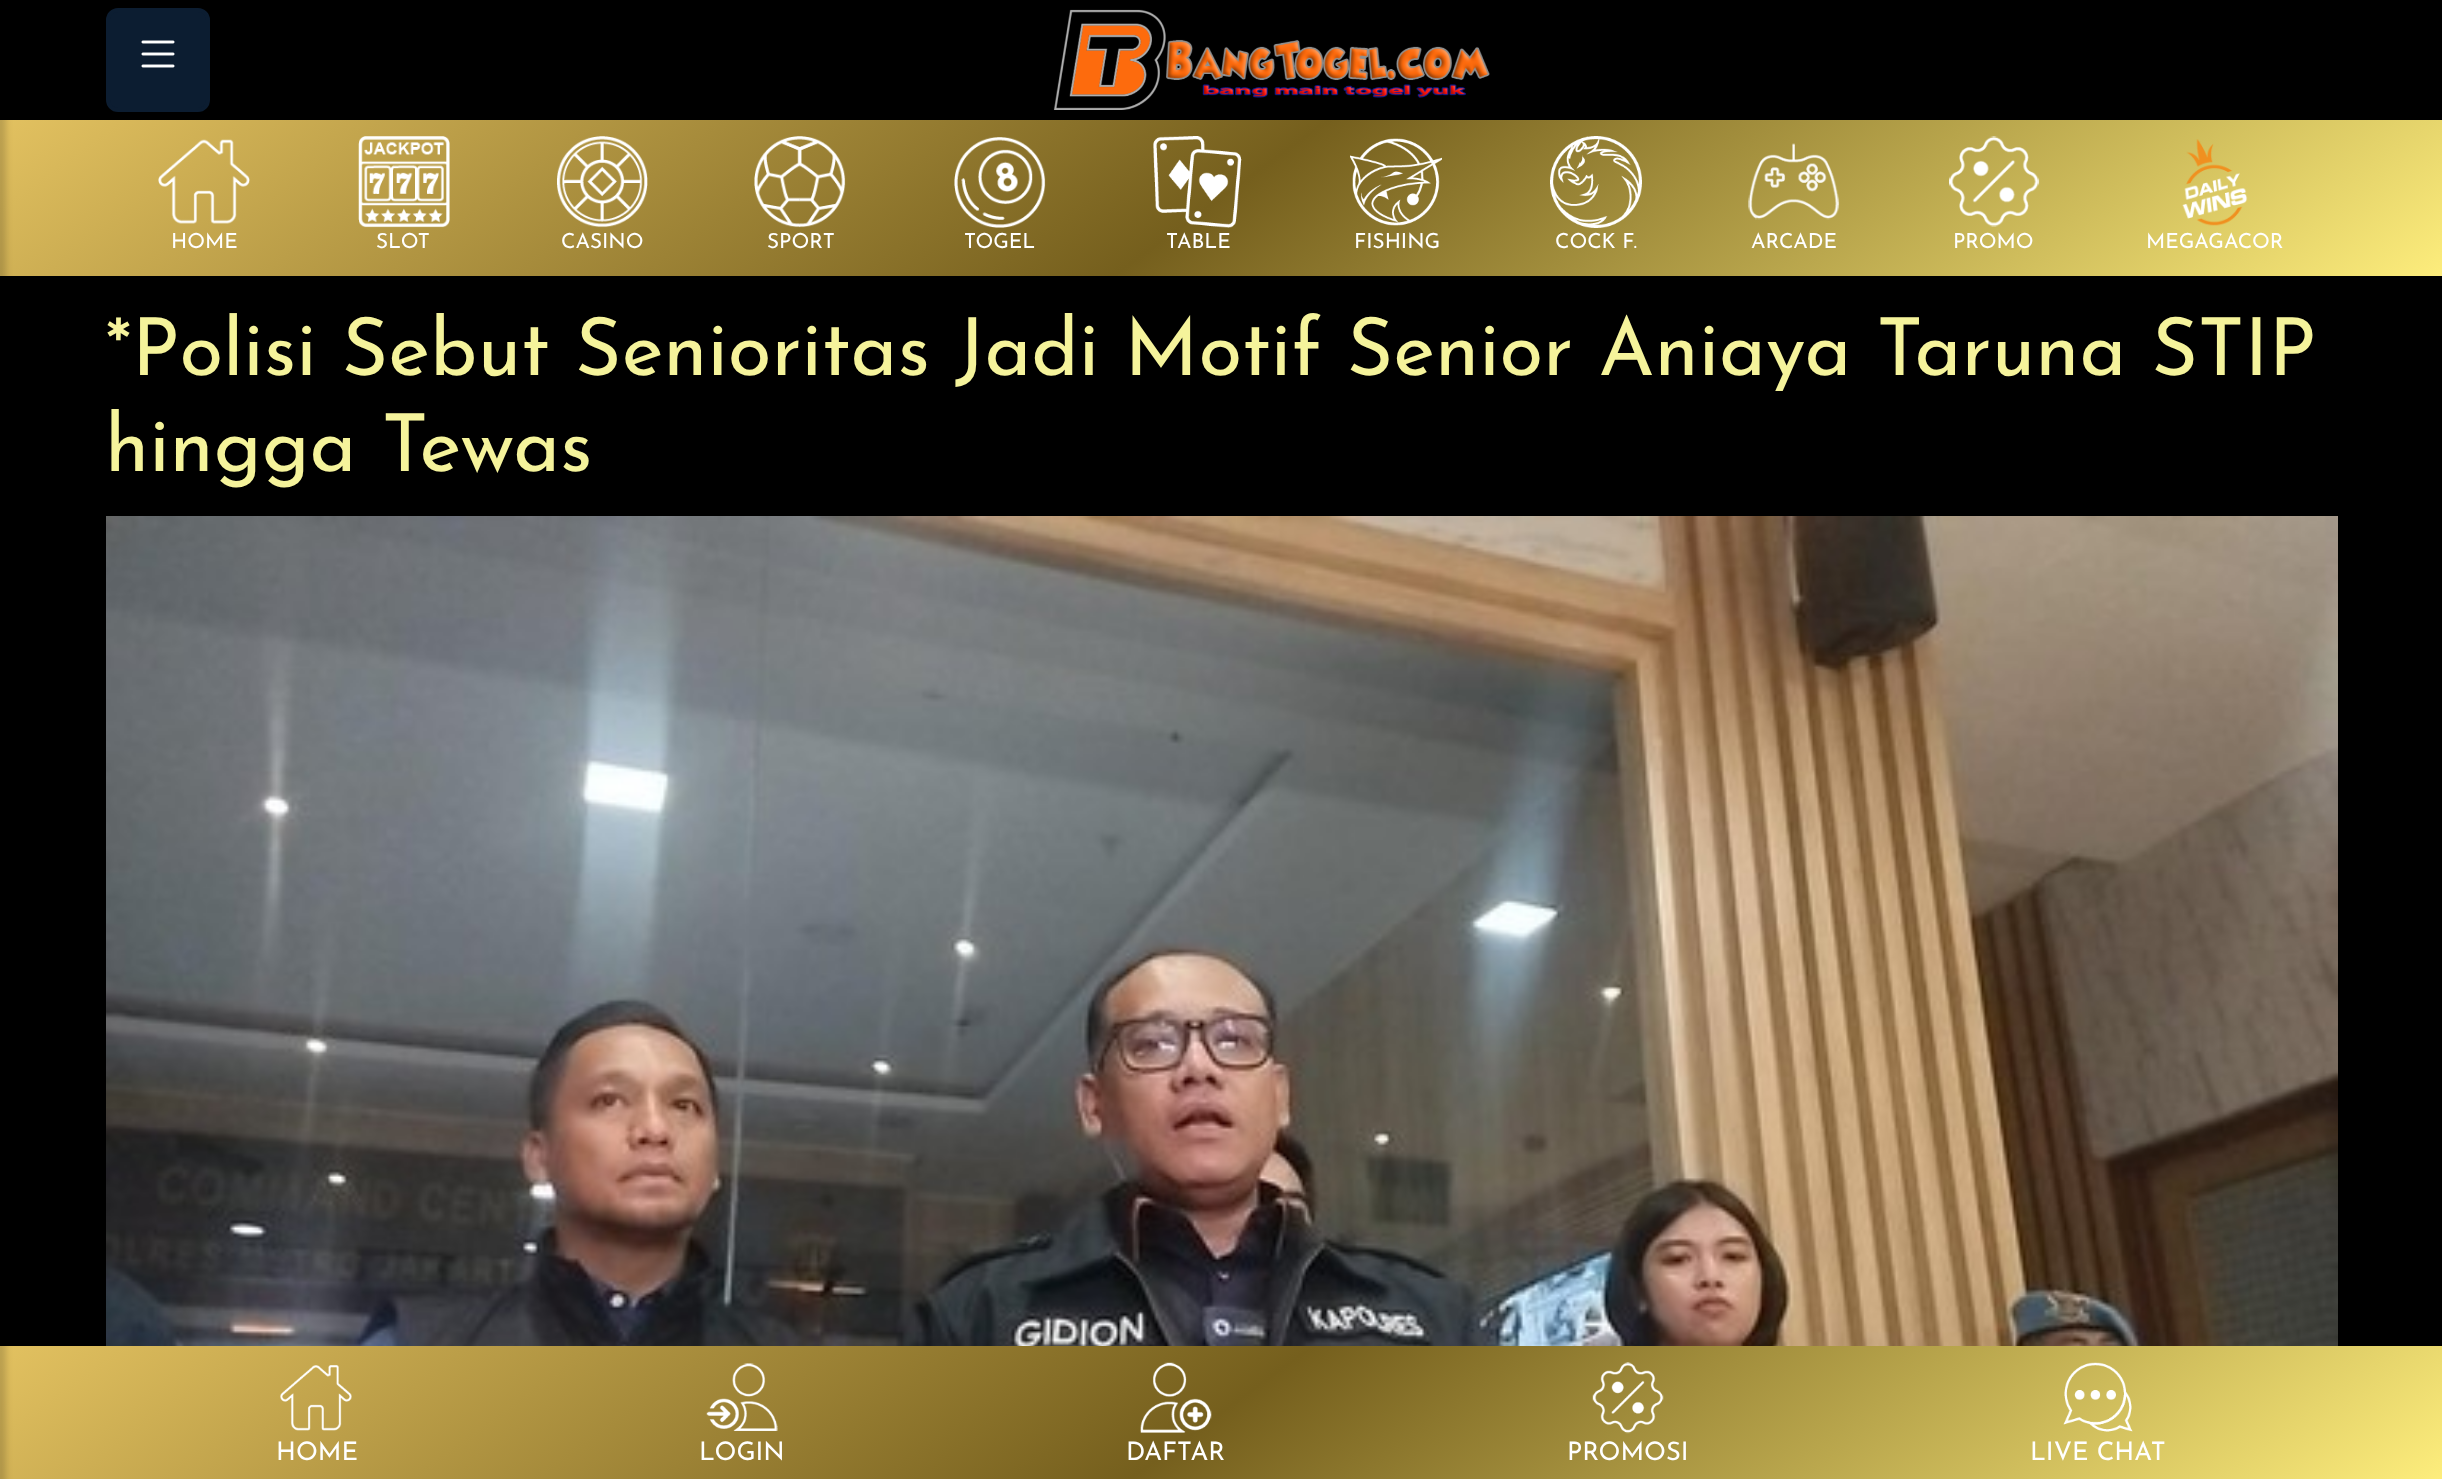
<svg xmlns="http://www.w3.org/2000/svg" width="2442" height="1479">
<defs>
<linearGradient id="g1" gradientUnits="userSpaceOnUse" x1="762" y1="-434" x2="1680" y2="830"><stop offset="0" stop-color="#e2c160"/><stop offset="0.5" stop-color="#755f1d"/><stop offset="1" stop-color="#fded7c"/></linearGradient>
<linearGradient id="g2" gradientUnits="userSpaceOnUse" x1="767" y1="789" x2="1675" y2="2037"><stop offset="0" stop-color="#e2c160"/><stop offset="0.5" stop-color="#755f1d"/><stop offset="1" stop-color="#fded7c"/></linearGradient>
</defs>
<rect width="100%" height="100%" fill="#000"/>
<rect y="120" width="2442" height="156" fill="url(#g1)"/>
<rect y="1346" width="2442" height="133" fill="url(#g2)"/>
<rect x="-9" y="6" width="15" height="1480" fill="#0000002b" filter="blur(3px)"/>
<rect x="108" y="10" width="100" height="100" rx="10" fill="#0c1d31" stroke="#0c1d31" stroke-width="4"/>
<image x="141" y="40" width="34" height="28" href="media/1.png"/>
<image x="1053" y="9" width="437" height="101" href="media/2.png"/>
<image x="158" y="139" width="92" height="85" href="media/3.png"/>
<text x="171" y="248" style="font-family:Josefin Sans;font-size:20.75px;font-weight:100;fill:#fff">HOME</text>
<image x="358" y="136" width="92" height="92" href="media/4.png"/>
<text x="376" y="248" style="font-family:Josefin Sans;font-size:20.75px;font-weight:100;fill:#fff">SLOT</text>
<image x="557" y="136" width="91" height="92" href="media/5.png"/>
<text x="561" y="248" style="font-family:Josefin Sans;font-size:20.75px;font-weight:100;fill:#fff">CASINO</text>
<image x="754" y="136" width="92" height="92" href="media/6.png"/>
<text x="767" y="248" style="font-family:Josefin Sans;font-size:20.75px;font-weight:100;fill:#fff">SPORT</text>
<image x="954" y="137" width="92" height="91" href="media/7.png"/>
<text x="964" y="248" style="font-family:Josefin Sans;font-size:20.75px;font-weight:100;fill:#fff">TOGEL</text>
<image x="1153" y="136" width="89" height="92" href="media/8.png"/>
<text x="1166" y="248" style="font-family:Josefin Sans;font-size:20.75px;font-weight:100;fill:#fff">TABLE</text>
<image x="1350" y="138" width="92" height="88" href="media/9.png"/>
<text x="1354" y="248" style="font-family:Josefin Sans;font-size:20.75px;font-weight:100;fill:#fff">FISHING</text>
<image x="1550" y="136" width="92" height="92" href="media/10.png"/>
<text x="1555" y="248" style="font-family:Josefin Sans;font-size:20.75px;font-weight:100;fill:#fff">COCK F.</text>
<image x="1748" y="143" width="92" height="77" href="media/11.png"/>
<text x="1751" y="248" style="font-family:Josefin Sans;font-size:20.75px;font-weight:100;fill:#fff">ARCADE</text>
<image x="1949" y="136" width="91" height="91" href="media/12.png"/>
<text x="1953" y="248" style="font-family:Josefin Sans;font-size:20.75px;font-weight:100;fill:#fff">PROMO</text>
<image x="2182" y="139" width="66" height="87" href="media/13.png"/>
<text x="2146" y="248" style="font-family:Josefin Sans;font-size:20.75px;font-weight:100;fill:#fff">MEGAGACOR</text>
<text x="105" y="375" style="font-family:Josefin Sans;font-size:80px;font-weight:100;fill:#f5f39b">*Polisi Sebut Senioritas Jadi Motif Senior Aniaya Taruna STIP</text>
<text x="105" y="471" style="font-family:Josefin Sans;font-size:80px;font-weight:100;fill:#f5f39b">hingga Tewas</text>
<image x="106" y="516" width="2232" height="830" href="media/14.png"/>
<image x="280" y="1365" width="72" height="66" href="media/15.png"/>
<text x="276" y="1460" style="font-family:Josefin Sans;font-size:25.5px;font-weight:100;fill:#fff">HOME</text>
<image x="706" y="1363" width="72" height="68" href="media/16.png"/>
<text x="699" y="1460" style="font-family:Josefin Sans;font-size:25.5px;font-weight:100;fill:#fff">LOGIN</text>
<image x="1140" y="1362" width="72" height="71" href="media/17.png"/>
<text x="1126" y="1460" style="font-family:Josefin Sans;font-size:25.5px;font-weight:100;fill:#fff">DAFTAR</text>
<image x="1592" y="1362" width="72" height="72" href="media/18.png"/>
<text x="1567" y="1460" style="font-family:Josefin Sans;font-size:25.5px;font-weight:100;fill:#fff">PROMOSI</text>
<image x="2063" y="1362" width="70" height="70" href="media/19.png"/>
<text x="2030" y="1460" style="font-family:Josefin Sans;font-size:25.5px;font-weight:100;fill:#fff">LIVE CHAT</text>
</svg>
